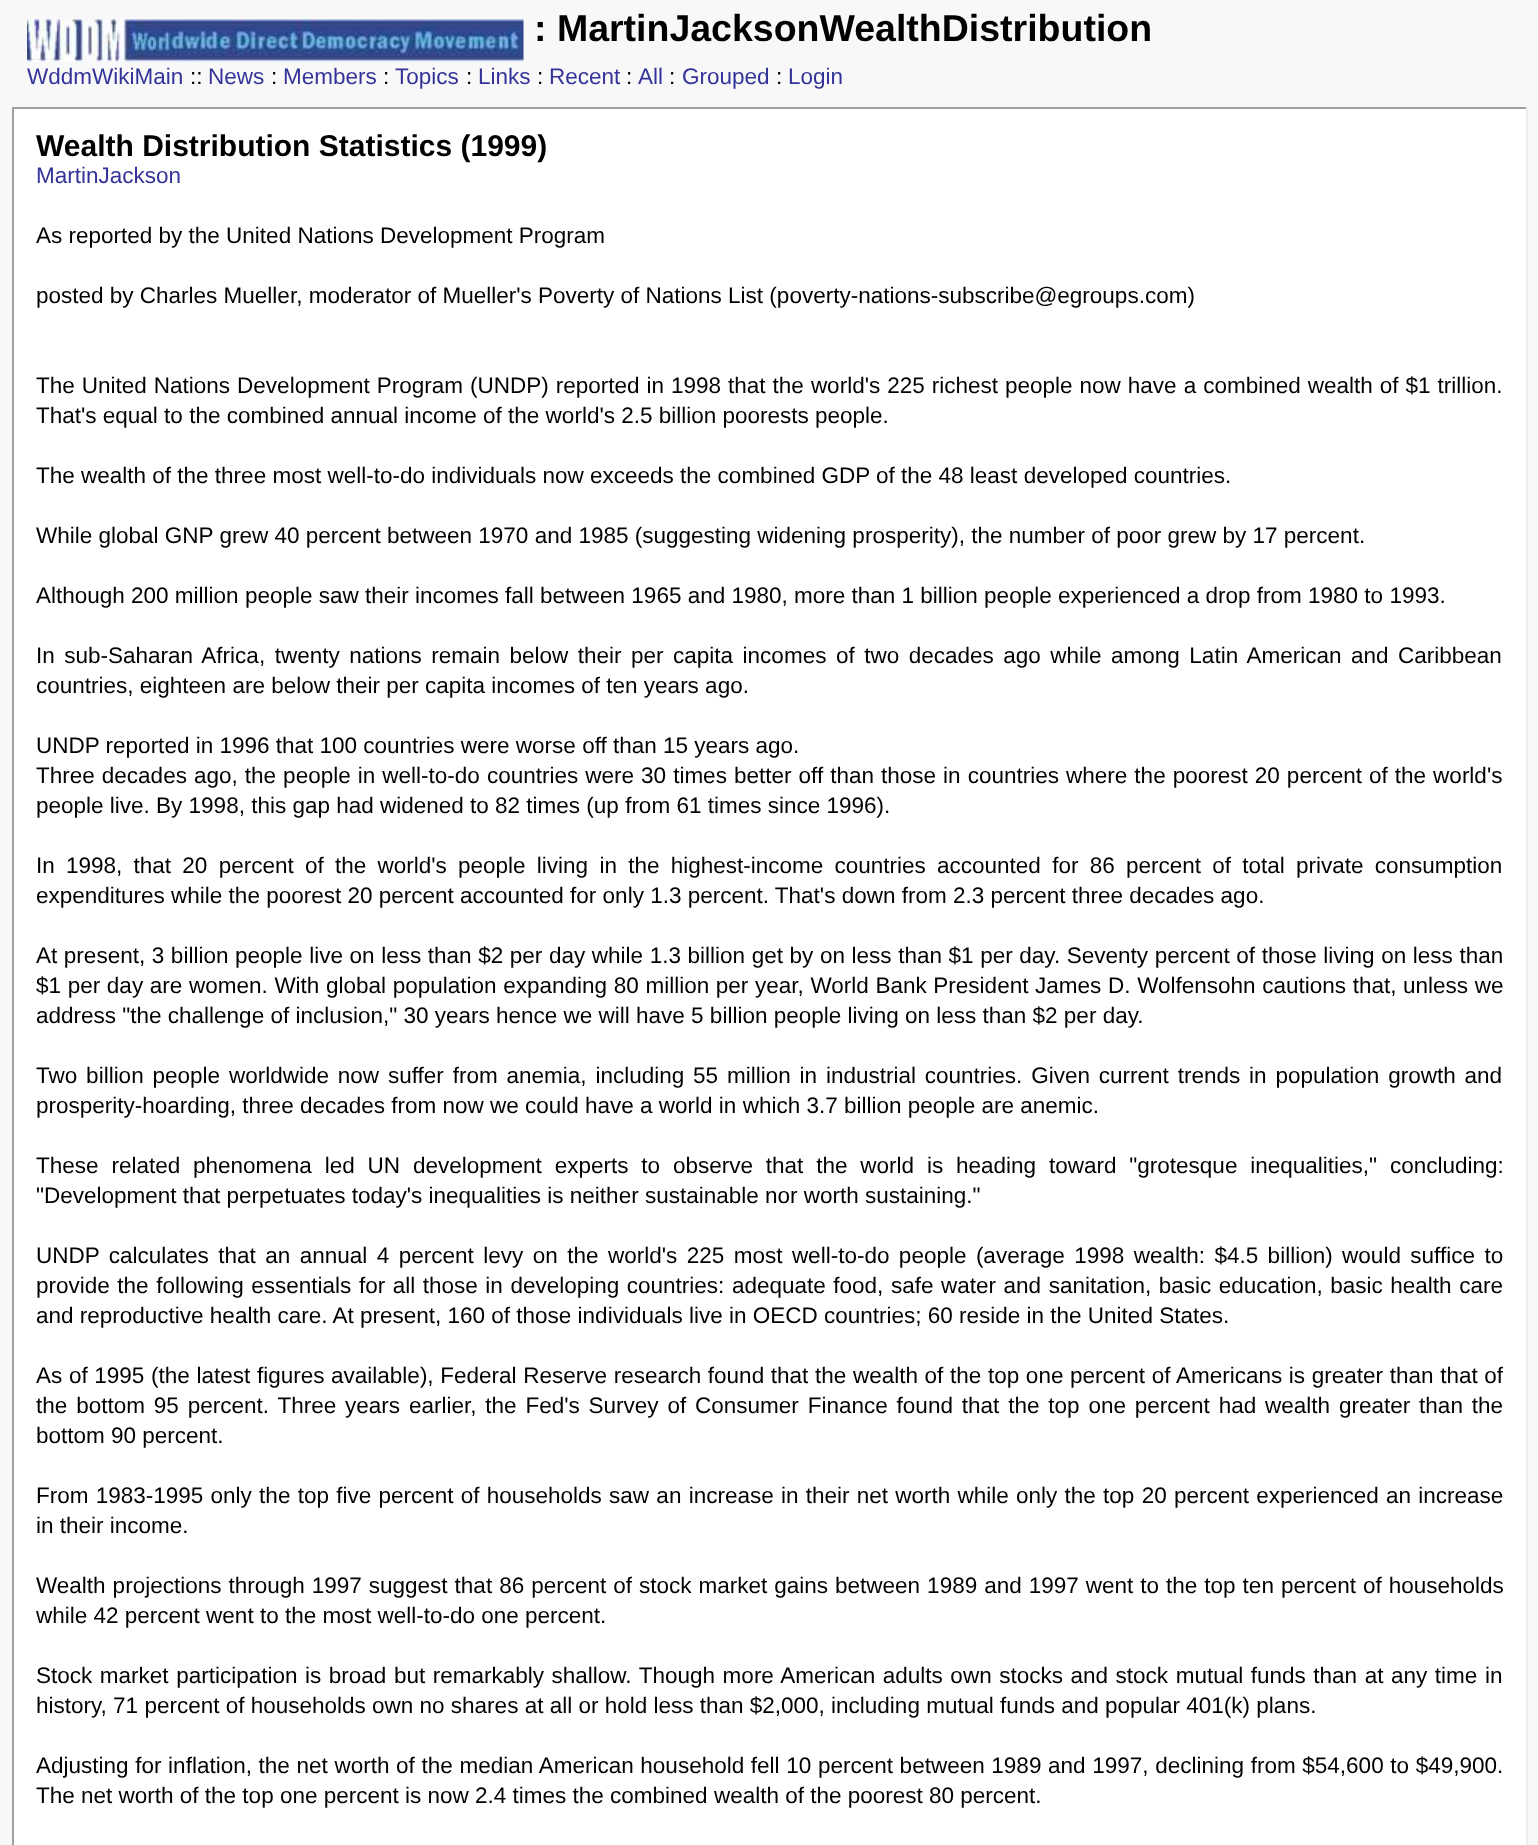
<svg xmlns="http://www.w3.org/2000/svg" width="1538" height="1845">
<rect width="100%" height="100%" fill="#f8f8f8"/>
<image x="27" y="19" width="497" height="43" href="media/1.png"/>
<text x="534" y="41" style="font-family:Liberation Sans;font-size:37.5px;font-weight:bold;fill:#000">: MartinJacksonWealthDistribution</text>
<text x="27" y="84" style="font-family:Liberation Sans;font-size:22.5px;fill:#339">WddmWikiMain</text>
<text x="190" y="84" style="font-family:Liberation Sans;font-size:22.5px;fill:#000">::</text>
<text x="208" y="84" style="font-family:Liberation Sans;font-size:22.5px;fill:#339">News</text>
<text x="271" y="84" style="font-family:Liberation Sans;font-size:22.5px;fill:#000">:</text>
<text x="283" y="84" style="font-family:Liberation Sans;font-size:22.5px;fill:#339">Members</text>
<text x="383" y="84" style="font-family:Liberation Sans;font-size:22.5px;fill:#000">:</text>
<text x="395" y="84" style="font-family:Liberation Sans;font-size:22.5px;fill:#339">Topics</text>
<text x="466" y="84" style="font-family:Liberation Sans;font-size:22.5px;fill:#000">:</text>
<text x="478" y="84" style="font-family:Liberation Sans;font-size:22.5px;fill:#339">Links</text>
<text x="537" y="84" style="font-family:Liberation Sans;font-size:22.5px;fill:#000">:</text>
<text x="549" y="84" style="font-family:Liberation Sans;font-size:22.5px;fill:#339">Recent</text>
<text x="626" y="84" style="font-family:Liberation Sans;font-size:22.5px;fill:#000">:</text>
<text x="638" y="84" style="font-family:Liberation Sans;font-size:22.5px;fill:#339">All</text>
<text x="669" y="84" style="font-family:Liberation Sans;font-size:22.5px;fill:#000">:</text>
<text x="682" y="84" style="font-family:Liberation Sans;font-size:22.5px;fill:#339">Grouped</text>
<text x="776" y="84" style="font-family:Liberation Sans;font-size:22.5px;fill:#000">:</text>
<text x="788" y="84" style="font-family:Liberation Sans;font-size:22.5px;fill:#339">Login</text>
<rect x="14" y="109" width="1512" height="1736" fill="#fff"/>
<rect x="12" y="107" width="1515" height="2" fill="#9f9f9f"/>
<rect x="1526" y="107" width="2" height="1738" fill="#eee"/>
<rect x="12" y="107" width="2" height="1738" fill="#9f9f9f"/>
<text x="36" y="156" style="font-family:Liberation Sans;font-size:30px;font-weight:bold;fill:#000">Wealth Distribution Statistics (1999)</text>
<text x="36" y="183" style="font-family:Liberation Sans;font-size:22.5px;fill:#339">MartinJackson</text>
<text x="36" y="243" style="font-family:Liberation Sans;font-size:22.5px;fill:#000">As reported by the United Nations Development Program</text>
<text x="36" y="303" style="font-family:Liberation Sans;font-size:22.5px;fill:#000">posted by Charles Mueller, moderator of Mueller's Poverty of Nations List (poverty-nations-subscribe@egroups.com)</text>
<text x="36" y="393" word-spacing="0.75" style="font-family:Liberation Sans;font-size:22.5px;fill:#000">The United Nations Development Program (UNDP) reported in 1998 that the world's 225 richest people now have a combined wealth of $1 trillion.</text>
<text x="36" y="423" style="font-family:Liberation Sans;font-size:22.5px;fill:#000">That's equal to the combined annual income of the world's 2.5 billion poorests people.</text>
<text x="36" y="483" style="font-family:Liberation Sans;font-size:22.5px;fill:#000">The wealth of the three most well-to-do individuals now exceeds the combined GDP of the 48 least developed countries.</text>
<text x="36" y="543" style="font-family:Liberation Sans;font-size:22.5px;fill:#000">While global GNP grew 40 percent between 1970 and 1985 (suggesting widening prosperity), the number of poor grew by 17 percent.</text>
<text x="36" y="603" style="font-family:Liberation Sans;font-size:22.5px;fill:#000">Although 200 million people saw their incomes fall between 1965 and 1980, more than 1 billion people experienced a drop from 1980 to 1993.</text>
<text x="36" y="663" word-spacing="3.25" style="font-family:Liberation Sans;font-size:22.5px;fill:#000">In sub-Saharan Africa, twenty nations remain below their per capita incomes of two decades ago while among Latin American and Caribbean</text>
<text x="36" y="693" style="font-family:Liberation Sans;font-size:22.5px;fill:#000">countries, eighteen are below their per capita incomes of ten years ago.</text>
<text x="36" y="753" style="font-family:Liberation Sans;font-size:22.5px;fill:#000">UNDP reported in 1996 that 100 countries were worse off than 15 years ago.</text>
<text x="36" y="783" word-spacing="0.8" style="font-family:Liberation Sans;font-size:22.5px;fill:#000">Three decades ago, the people in well-to-do countries were 30 times better off than those in countries where the poorest 20 percent of the world's</text>
<text x="36" y="813" style="font-family:Liberation Sans;font-size:22.5px;fill:#000">people live. By 1998, this gap had widened to 82 times (up from 61 times since 1996).</text>
<text x="36" y="873" word-spacing="5" style="font-family:Liberation Sans;font-size:22.5px;fill:#000">In 1998, that 20 percent of the world's people living in the highest-income countries accounted for 86 percent of total private consumption</text>
<text x="36" y="903" style="font-family:Liberation Sans;font-size:22.5px;fill:#000">expenditures while the poorest 20 percent accounted for only 1.3 percent. That's down from 2.3 percent three decades ago.</text>
<text x="36" y="963" word-spacing="0.35" style="font-family:Liberation Sans;font-size:22.5px;fill:#000">At present, 3 billion people live on less than $2 per day while 1.3 billion get by on less than $1 per day. Seventy percent of those living on less than</text>
<text x="36" y="993" word-spacing="0.4" style="font-family:Liberation Sans;font-size:22.5px;fill:#000">$1 per day are women. With global population expanding 80 million per year, World Bank President James D. Wolfensohn cautions that, unless we</text>
<text x="36" y="1023" style="font-family:Liberation Sans;font-size:22.5px;fill:#000">address "the challenge of inclusion," 30 years hence we will have 5 billion people living on less than $2 per day.</text>
<text x="36" y="1083" word-spacing="2.6" style="font-family:Liberation Sans;font-size:22.5px;fill:#000">Two billion people worldwide now suffer from anemia, including 55 million in industrial countries. Given current trends in population growth and</text>
<text x="36" y="1113" style="font-family:Liberation Sans;font-size:22.5px;fill:#000">prosperity-hoarding, three decades from now we could have a world in which 3.7 billion people are anemic.</text>
<text x="36" y="1173" word-spacing="6.6" style="font-family:Liberation Sans;font-size:22.5px;fill:#000">These related phenomena led UN development experts to observe that the world is heading toward "grotesque inequalities," concluding:</text>
<text x="36" y="1203" style="font-family:Liberation Sans;font-size:22.5px;fill:#000">"Development that perpetuates today's inequalities is neither sustainable nor worth sustaining."</text>
<text x="36" y="1263" word-spacing="3.2" style="font-family:Liberation Sans;font-size:22.5px;fill:#000">UNDP calculates that an annual 4 percent levy on the world's 225 most well-to-do people (average 1998 wealth: $4.5 billion) would suffice to</text>
<text x="36" y="1293" word-spacing="1.3" style="font-family:Liberation Sans;font-size:22.5px;fill:#000">provide the following essentials for all those in developing countries: adequate food, safe water and sanitation, basic education, basic health care</text>
<text x="36" y="1323" style="font-family:Liberation Sans;font-size:22.5px;fill:#000">and reproductive health care. At present, 160 of those individuals live in OECD countries; 60 reside in the United States.</text>
<text x="36" y="1383" word-spacing="0.4" style="font-family:Liberation Sans;font-size:22.5px;fill:#000">As of 1995 (the latest figures available), Federal Reserve research found that the wealth of the top one percent of Americans is greater than that of</text>
<text x="36" y="1413" word-spacing="2.6" style="font-family:Liberation Sans;font-size:22.5px;fill:#000">the bottom 95 percent. Three years earlier, the Fed's Survey of Consumer Finance found that the top one percent had wealth greater than the</text>
<text x="36" y="1443" style="font-family:Liberation Sans;font-size:22.5px;fill:#000">bottom 90 percent.</text>
<text x="36" y="1503" word-spacing="1" style="font-family:Liberation Sans;font-size:22.5px;fill:#000">From 1983-1995 only the top five percent of households saw an increase in their net worth while only the top 20 percent experienced an increase</text>
<text x="36" y="1533" style="font-family:Liberation Sans;font-size:22.5px;fill:#000">in their income.</text>
<text x="36" y="1593" word-spacing="0.75" style="font-family:Liberation Sans;font-size:22.5px;fill:#000">Wealth projections through 1997 suggest that 86 percent of stock market gains between 1989 and 1997 went to the top ten percent of households</text>
<text x="36" y="1623" style="font-family:Liberation Sans;font-size:22.5px;fill:#000">while 42 percent went to the most well-to-do one percent.</text>
<text x="36" y="1683" word-spacing="1.3" style="font-family:Liberation Sans;font-size:22.5px;fill:#000">Stock market participation is broad but remarkably shallow. Though more American adults own stocks and stock mutual funds than at any time in</text>
<text x="36" y="1713" style="font-family:Liberation Sans;font-size:22.5px;fill:#000">history, 71 percent of households own no shares at all or hold less than $2,000, including mutual funds and popular 401(k) plans.</text>
<text x="36" y="1773" word-spacing="0.4" style="font-family:Liberation Sans;font-size:22.5px;fill:#000">Adjusting for inflation, the net worth of the median American household fell 10 percent between 1989 and 1997, declining from $54,600 to $49,900.</text>
<text x="36" y="1803" style="font-family:Liberation Sans;font-size:22.5px;fill:#000">The net worth of the top one percent is now 2.4 times the combined wealth of the poorest 80 percent.</text>
</svg>
